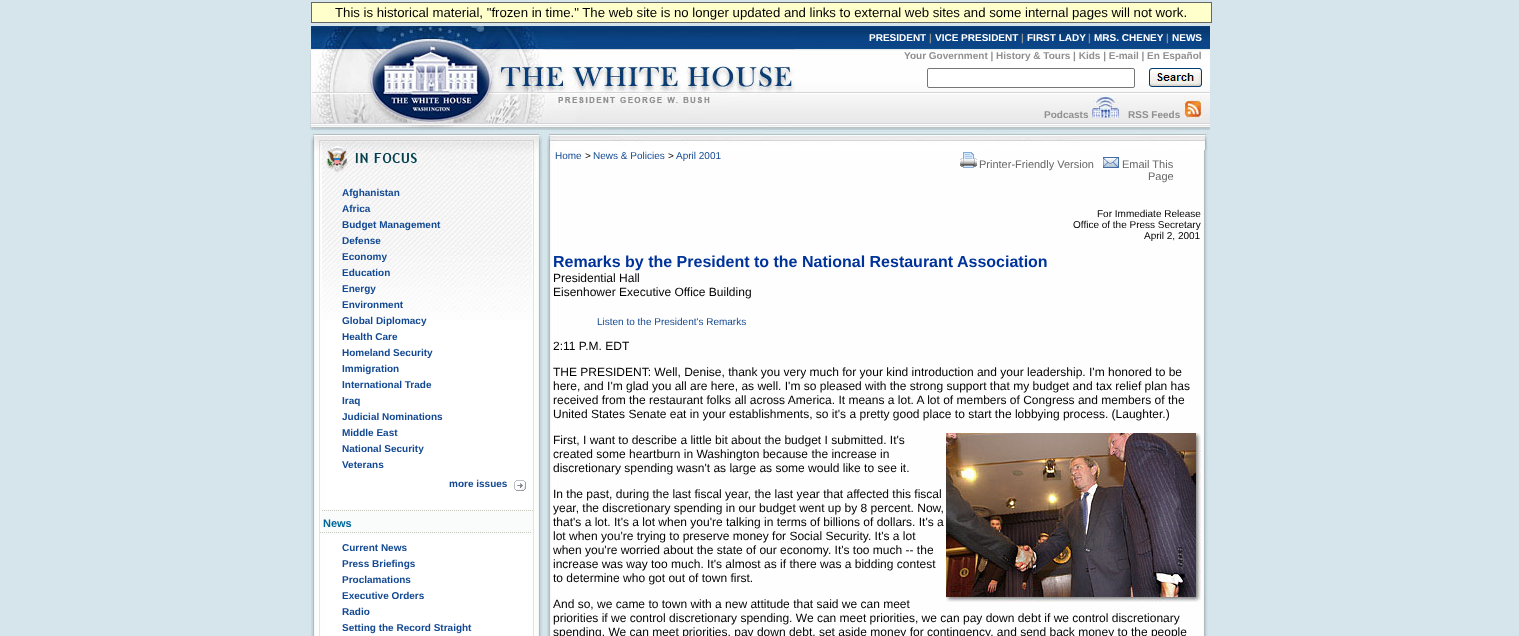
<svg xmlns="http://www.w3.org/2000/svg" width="1519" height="636">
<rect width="100%" height="100%" fill="#d5e5eb"/>
<rect x="311.5" y="2.5" width="900" height="20" fill="#ffc" stroke="#666"/>
<text x="335" y="17" style="font-family:Liberation Sans;font-size:13.2px;fill:#000">This is historical material, "frozen in time." The web site is no longer updated and links to external web sites and some internal pages will not work.</text>
<image x="795" y="26" width="415" height="104" href="media/1.png"/>
<image x="310" y="26" width="485" height="104" href="media/2.png"/>
<text x="869" y="41" style="font-family:Liberation Sans;font-size:10px;font-weight:bold;fill:#fff">PRESIDENT</text>
<text x="929" y="41" style="font-family:Liberation Sans;font-size:10px;font-weight:bold;fill:#919090">|</text>
<text x="935" y="41" style="font-family:Liberation Sans;font-size:10px;font-weight:bold;fill:#fff">VICE PRESIDENT</text>
<text x="1021" y="41" style="font-family:Liberation Sans;font-size:10px;font-weight:bold;fill:#919090">|</text>
<text x="1027" y="41" style="font-family:Liberation Sans;font-size:10px;font-weight:bold;fill:#fff">FIRST LADY</text>
<text x="1088" y="41" style="font-family:Liberation Sans;font-size:10px;font-weight:bold;fill:#919090">|</text>
<text x="1094" y="41" style="font-family:Liberation Sans;font-size:10px;font-weight:bold;fill:#fff">MRS. CHENEY</text>
<text x="1166" y="41" style="font-family:Liberation Sans;font-size:10px;font-weight:bold;fill:#919090">|</text>
<text x="1172" y="41" style="font-family:Liberation Sans;font-size:10px;font-weight:bold;fill:#fff">NEWS</text>
<text x="904" y="59" style="font-family:Liberation Sans;font-size:10px;font-weight:bold;fill:#919090">Your Government | History &amp; Tours | Kids | E-mail | En Español</text>
<rect x="927.5" y="68.5" width="207" height="19" rx="1.5" fill="#fff" stroke="#767676"/>
<image x="1149" y="68" width="53" height="19" href="media/3.png"/>
<text x="1044" y="118" style="font-family:Liberation Sans;font-size:10px;font-weight:bold;fill:#919090">Podcasts</text>
<image x="1092" y="96" width="27" height="22" href="media/4.png"/>
<text x="1128" y="118" style="font-family:Liberation Sans;font-size:10px;font-weight:bold;fill:#919090">RSS Feeds</text>
<image x="1184" y="96" width="18" height="22" href="media/5.png"/>
<image x="311" y="130" width="897" height="506" href="media/6.png"/>
<image x="547" y="130" width="660" height="20" href="media/7.png"/>
<image x="312" y="180" width="229" height="456" href="media/8.png"/>
<image x="310" y="130" width="233" height="50" href="media/9.png"/>
<image x="320" y="176" width="212" height="144" href="media/10.png"/>
<text x="342" y="196" style="font-family:Liberation Sans;font-size:10px;font-weight:bold;fill:#134992">Afghanistan</text>
<text x="342" y="212" style="font-family:Liberation Sans;font-size:10px;font-weight:bold;fill:#134992">Africa</text>
<text x="342" y="228" style="font-family:Liberation Sans;font-size:10px;font-weight:bold;fill:#134992">Budget Management</text>
<text x="342" y="244" style="font-family:Liberation Sans;font-size:10px;font-weight:bold;fill:#134992">Defense</text>
<text x="342" y="260" style="font-family:Liberation Sans;font-size:10px;font-weight:bold;fill:#134992">Economy</text>
<text x="342" y="276" style="font-family:Liberation Sans;font-size:10px;font-weight:bold;fill:#134992">Education</text>
<text x="342" y="292" style="font-family:Liberation Sans;font-size:10px;font-weight:bold;fill:#134992">Energy</text>
<text x="342" y="308" style="font-family:Liberation Sans;font-size:10px;font-weight:bold;fill:#134992">Environment</text>
<text x="342" y="324" style="font-family:Liberation Sans;font-size:10px;font-weight:bold;fill:#134992">Global Diplomacy</text>
<text x="342" y="340" style="font-family:Liberation Sans;font-size:10px;font-weight:bold;fill:#134992">Health Care</text>
<text x="342" y="356" style="font-family:Liberation Sans;font-size:10px;font-weight:bold;fill:#134992">Homeland Security</text>
<text x="342" y="372" style="font-family:Liberation Sans;font-size:10px;font-weight:bold;fill:#134992">Immigration</text>
<text x="342" y="388" style="font-family:Liberation Sans;font-size:10px;font-weight:bold;fill:#134992">International Trade</text>
<text x="342" y="404" style="font-family:Liberation Sans;font-size:10px;font-weight:bold;fill:#134992">Iraq</text>
<text x="342" y="420" style="font-family:Liberation Sans;font-size:10px;font-weight:bold;fill:#134992">Judicial Nominations</text>
<text x="342" y="436" style="font-family:Liberation Sans;font-size:10px;font-weight:bold;fill:#134992">Middle East</text>
<text x="342" y="452" style="font-family:Liberation Sans;font-size:10px;font-weight:bold;fill:#134992">National Security</text>
<text x="342" y="468" style="font-family:Liberation Sans;font-size:10px;font-weight:bold;fill:#134992">Veterans</text>
<text x="449" y="487" style="font-family:Liberation Sans;font-size:10px;font-weight:bold;fill:#134992">more issues</text>
<image x="514" y="480" width="12" height="11" href="media/11.png"/>
<rect x="321" y="509" width="212" height="26" fill="#fafcfc"/>
<image x="322" y="510" width="211" height="1" href="media/12.png"/>
<text x="323" y="527" style="font-family:Liberation Sans;font-size:11px;font-weight:bold;fill:#069">News</text>
<image x="320" y="532" width="211" height="1" href="media/13.png"/>
<text x="342" y="551" style="font-family:Liberation Sans;font-size:10px;font-weight:bold;fill:#134992">Current News</text>
<text x="342" y="567" style="font-family:Liberation Sans;font-size:10px;font-weight:bold;fill:#134992">Press Briefings</text>
<text x="342" y="583" style="font-family:Liberation Sans;font-size:10px;font-weight:bold;fill:#134992">Proclamations</text>
<text x="342" y="599" style="font-family:Liberation Sans;font-size:10px;font-weight:bold;fill:#134992">Executive Orders</text>
<text x="342" y="615" style="font-family:Liberation Sans;font-size:10px;font-weight:bold;fill:#134992">Radio</text>
<text x="342" y="631" style="font-family:Liberation Sans;font-size:10px;font-weight:bold;fill:#134992">Setting the Record Straight</text>
<text x="555" y="159" style="font-family:Liberation Sans;font-size:10px;fill:#134992">Home</text>
<text x="585" y="159" style="font-family:Liberation Sans;font-size:10px;fill:#000">&gt;</text>
<text x="593" y="159" style="font-family:Liberation Sans;font-size:10px;fill:#134992">News &amp; Policies</text>
<text x="668" y="159" style="font-family:Liberation Sans;font-size:10px;fill:#000">&gt;</text>
<text x="676" y="159" style="font-family:Liberation Sans;font-size:10px;fill:#134992">April 2001</text>
<image x="960" y="152" width="17" height="16" href="media/14.png"/>
<text x="979" y="168" style="font-family:Liberation Sans;font-size:11px;fill:#666">Printer-Friendly Version</text>
<image x="1103" y="157" width="16" height="11" href="media/15.png"/>
<text x="1122" y="168" style="font-family:Liberation Sans;font-size:11px;fill:#666">Email This</text>
<text x="1148" y="180" style="font-family:Liberation Sans;font-size:11px;fill:#666">Page</text>
<text x="1097" y="217" style="font-family:Liberation Sans;font-size:10px;fill:#000">For Immediate Release</text>
<text x="1073" y="228" style="font-family:Liberation Sans;font-size:10px;fill:#000">Office of the Press Secretary</text>
<text x="1144" y="239" style="font-family:Liberation Sans;font-size:10px;fill:#000">April 2, 2001</text>
<text x="553" y="267" style="font-family:Liberation Sans;font-size:16px;font-weight:bold;fill:#039">Remarks by the President to the National Restaurant Association</text>
<text x="553" y="282" style="font-family:Liberation Sans;font-size:12px;fill:#000">Presidential Hall</text>
<text x="553" y="296" style="font-family:Liberation Sans;font-size:12px;fill:#000">Eisenhower Executive Office Building</text>
<text x="597" y="325" style="font-family:Liberation Sans;font-size:10px;fill:#134992">Listen to the President's Remarks</text>
<text x="553" y="350" style="font-family:Liberation Sans;font-size:12px;fill:#000">2:11 P.M. EDT</text>
<text x="553" y="376" style="font-family:Liberation Sans;font-size:12px;fill:#000">THE PRESIDENT: Well, Denise, thank you very much for your kind introduction and your leadership. I'm honored to be</text>
<text x="553" y="390" style="font-family:Liberation Sans;font-size:12px;fill:#000">here, and I'm glad you all are here, as well. I'm so pleased with the strong support that my budget and tax relief plan has</text>
<text x="553" y="404" style="font-family:Liberation Sans;font-size:12px;fill:#000">received from the restaurant folks all across America. It means a lot. A lot of members of Congress and members of the</text>
<text x="553" y="418" style="font-family:Liberation Sans;font-size:12px;fill:#000">United States Senate eat in your establishments, so it's a pretty good place to start the lobbying process. (Laughter.)</text>
<text x="553" y="444" style="font-family:Liberation Sans;font-size:12px;fill:#000">First, I want to describe a little bit about the budget I submitted. It's</text>
<text x="553" y="458" style="font-family:Liberation Sans;font-size:12px;fill:#000">created some heartburn in Washington because the increase in</text>
<text x="553" y="472" style="font-family:Liberation Sans;font-size:12px;fill:#000">discretionary spending wasn't as large as some would like to see it.</text>
<image x="946" y="433" width="255" height="169" href="media/16.png"/>
<text x="553" y="498" style="font-family:Liberation Sans;font-size:12px;fill:#000">In the past, during the last fiscal year, the last year that affected this fiscal</text>
<text x="553" y="512" style="font-family:Liberation Sans;font-size:12px;fill:#000">year, the discretionary spending in our budget went up by 8 percent. Now,</text>
<text x="553" y="526" style="font-family:Liberation Sans;font-size:12px;fill:#000">that's a lot. It's a lot when you're talking in terms of billions of dollars. It's a</text>
<text x="553" y="540" style="font-family:Liberation Sans;font-size:12px;fill:#000">lot when you're trying to preserve money for Social Security. It's a lot</text>
<text x="553" y="554" style="font-family:Liberation Sans;font-size:12px;fill:#000">when you're worried about the state of our economy. It's too much -- the</text>
<text x="553" y="568" style="font-family:Liberation Sans;font-size:12px;fill:#000">increase was way too much. It's almost as if there was a bidding contest</text>
<text x="553" y="582" style="font-family:Liberation Sans;font-size:12px;fill:#000">to determine who got out of town first.</text>
<text x="553" y="608" style="font-family:Liberation Sans;font-size:12px;fill:#000">And so, we came to town with a new attitude that said we can meet</text>
<text x="553" y="622" style="font-family:Liberation Sans;font-size:12px;fill:#000">priorities if we control discretionary spending. We can meet priorities, we can pay down debt if we control discretionary</text>
<text x="553" y="636" style="font-family:Liberation Sans;font-size:12px;fill:#000">spending. We can meet priorities, pay down debt, set aside money for contingency, and send back money to the people</text>
</svg>
